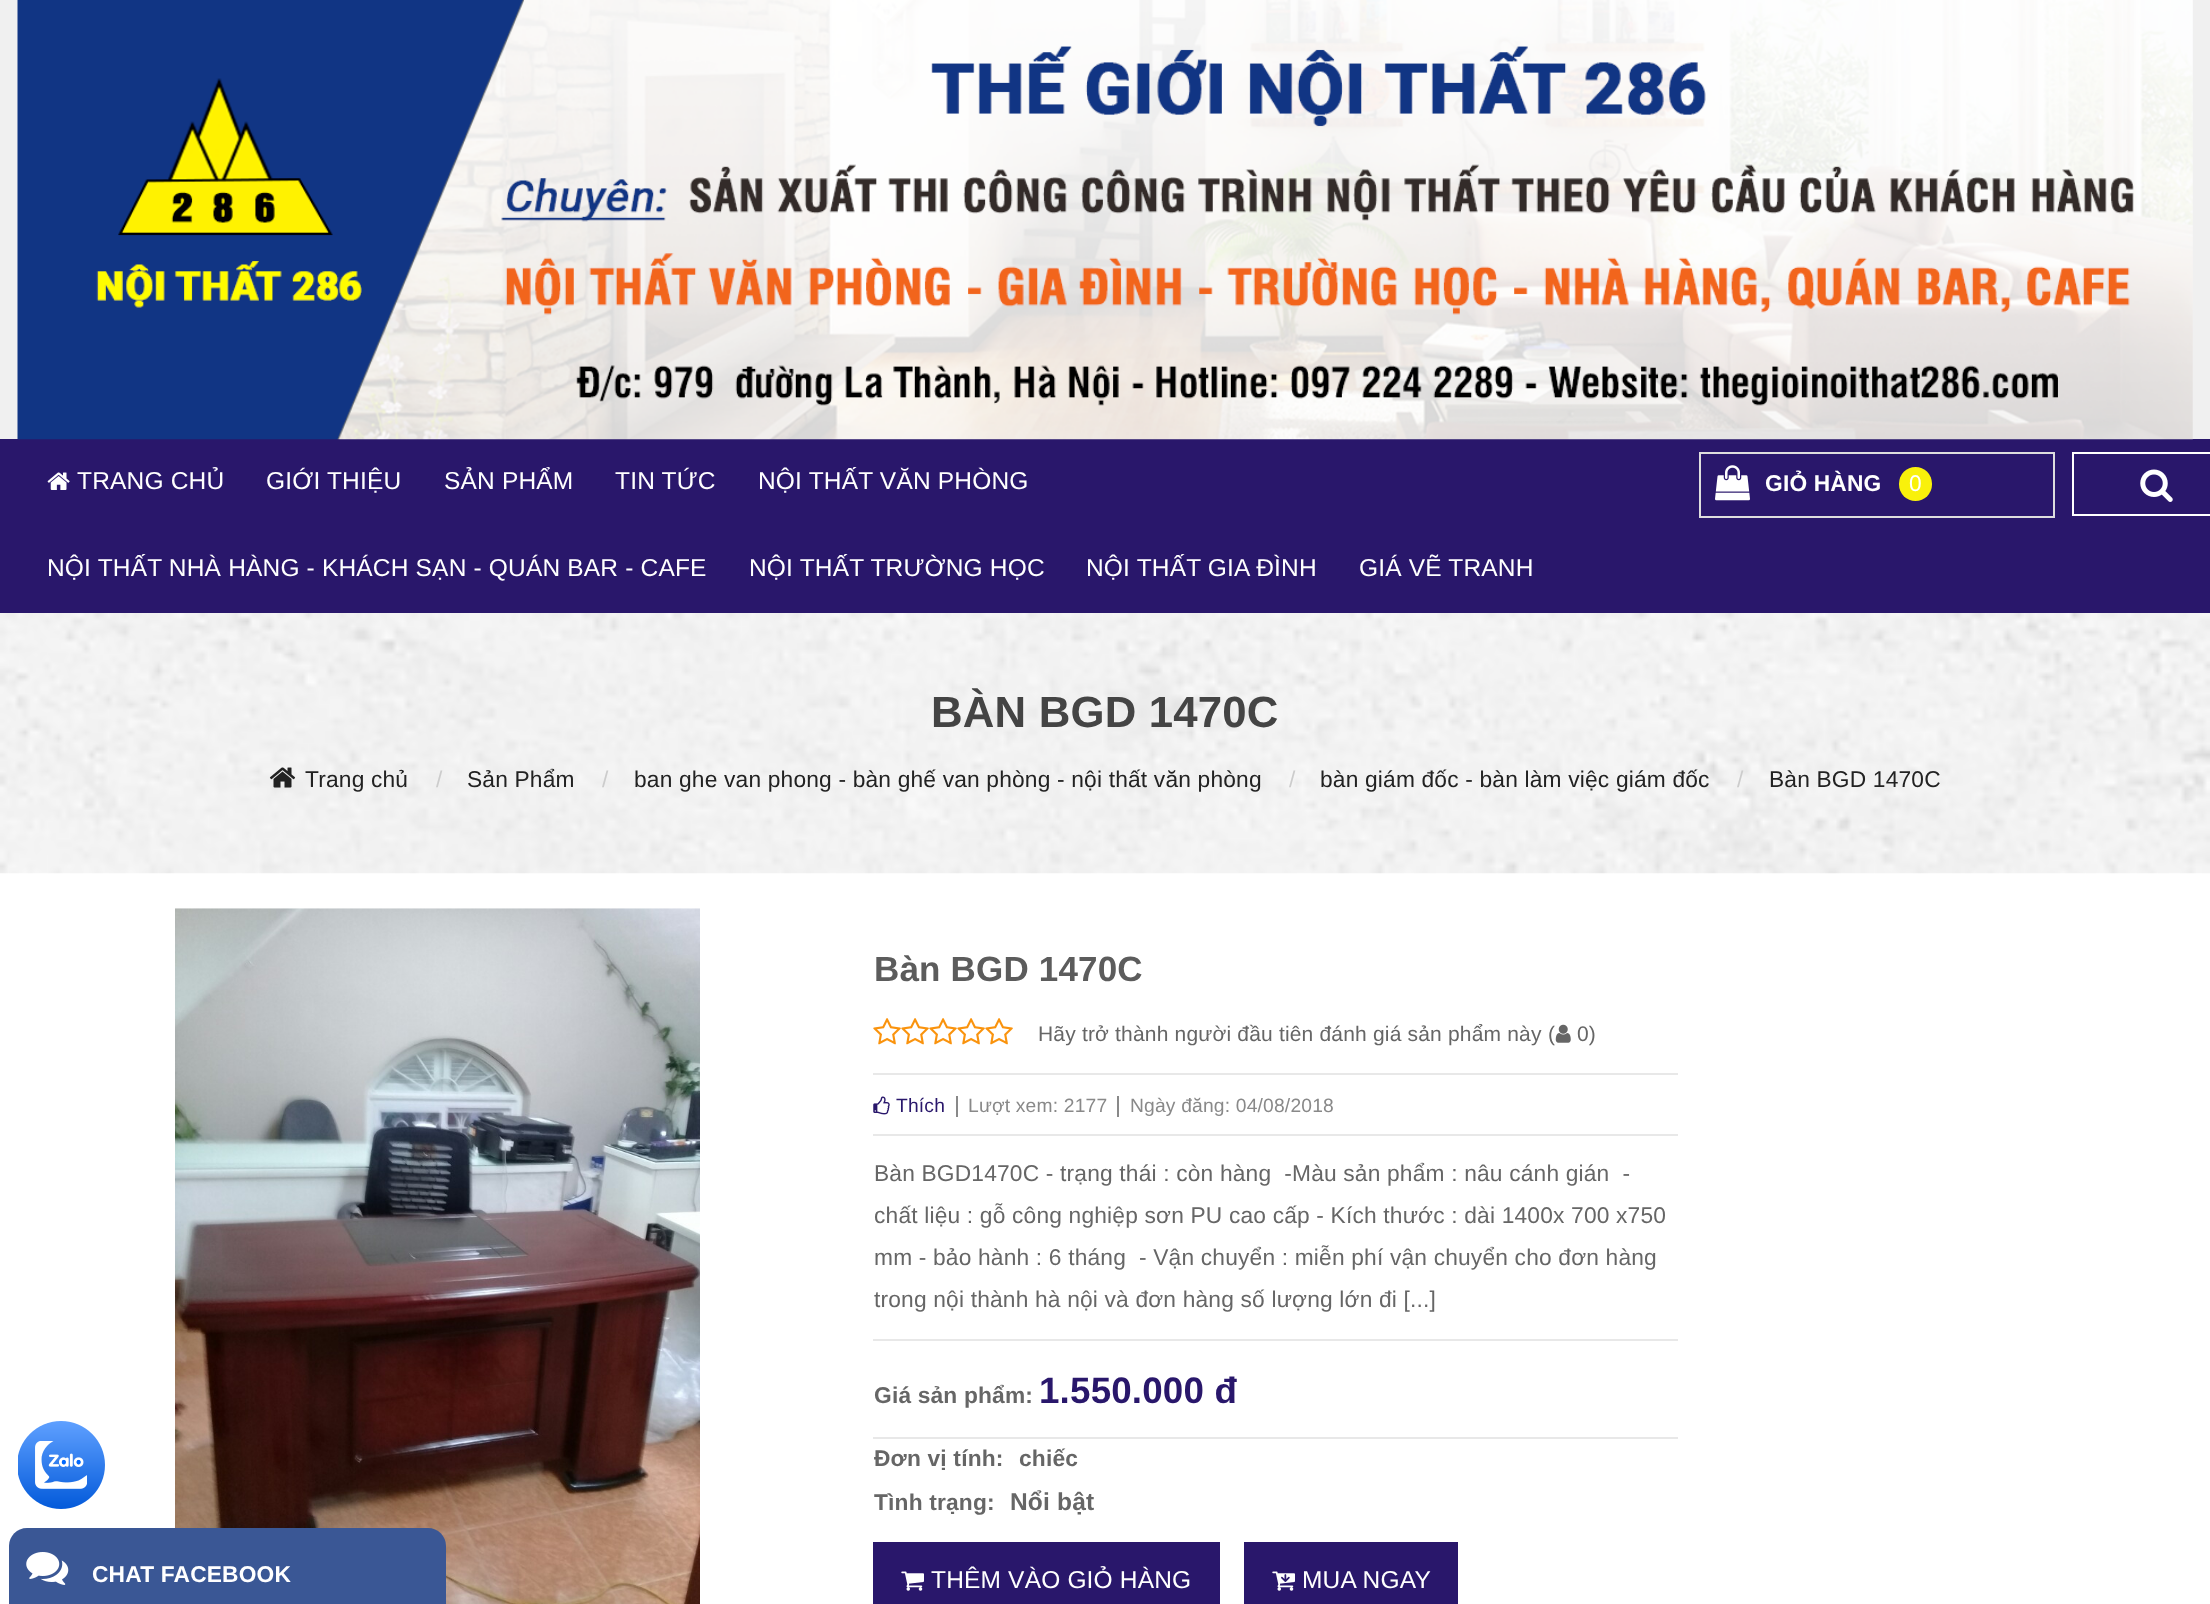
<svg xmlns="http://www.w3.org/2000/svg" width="2210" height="1604">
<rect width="100%" height="100%" fill="#f0f0f0"/>
<rect y="439" width="2210" height="174" fill="#29176b"/>
<image x="17" y="0" width="2176" height="440" href="media/1.png"/>
<image x="47" y="472" width="23" height="18" href="media/2.png"/>
<text x="77" y="489" style="font-family:Liberation Sans;font-size:24.5px;letter-spacing:0.18px;fill:#fff">TRANG CHỦ</text>
<text x="266" y="489" style="font-family:Liberation Sans;font-size:24.5px;letter-spacing:0.18px;fill:#fff">GIỚI THIỆU</text>
<text x="444" y="489" style="font-family:Liberation Sans;font-size:24.5px;letter-spacing:0.18px;fill:#fff">SẢN PHẨM</text>
<text x="615" y="489" style="font-family:Liberation Sans;font-size:24.5px;letter-spacing:0.18px;fill:#fff">TIN TỨC</text>
<text x="758" y="489" style="font-family:Liberation Sans;font-size:24.5px;letter-spacing:0.18px;fill:#fff">NỘI THẤT VĂN PHÒNG</text>
<text x="47" y="576" style="font-family:Liberation Sans;font-size:24.5px;letter-spacing:0.18px;fill:#fff">NỘI THẤT NHÀ HÀNG - KHÁCH SẠN - QUÁN BAR - CAFE</text>
<text x="749" y="576" style="font-family:Liberation Sans;font-size:24.5px;letter-spacing:0.18px;fill:#fff">NỘI THẤT TRƯỜNG HỌC</text>
<text x="1086" y="576" style="font-family:Liberation Sans;font-size:24.5px;letter-spacing:0.18px;fill:#fff">NỘI THẤT GIA ĐÌNH</text>
<text x="1359" y="576" style="font-family:Liberation Sans;font-size:24.5px;letter-spacing:0.18px;fill:#fff">GIÁ VẼ TRANH</text>
<rect x="1700" y="453" width="354" height="64" fill="none" stroke="#dedede" stroke-width="2"/>
<image x="1715" y="465" width="35" height="36" href="media/3.png"/>
<text x="1765" y="491" style="font-family:Liberation Sans;font-size:22.75px;font-weight:bold;letter-spacing:0.18px;fill:#fff">GIỎ HÀNG</text>
<rect x="1899" y="467" width="33" height="34" rx="16.5" fill="#f9f10b"/>
<text x="1909" y="491" style="font-family:Liberation Sans;font-size:22.75px;letter-spacing:0.18px;fill:#fff">0</text>
<rect x="2073" y="453" width="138" height="62" fill="none" stroke="#fff" stroke-width="2"/>
<image x="2140" y="469" width="33" height="33" href="media/4.png"/>
<rect y="873" width="2210" height="731" fill="#fff"/>
<image x="18" y="1421" width="87" height="88" href="media/5.png"/>
<image x="0" y="613" width="2210" height="261" href="media/6.png"/>
<text x="931" y="727" style="font-family:Liberation Sans;font-size:43.75px;font-weight:bold;letter-spacing:0.18px;fill:#444">BÀN BGD 1470C</text>
<image x="269" y="767" width="27" height="21" href="media/7.png"/>
<text x="305" y="787" style="font-family:Liberation Sans;font-size:22.75px;letter-spacing:0.18px;fill:#222">Trang chủ</text>
<text x="436" y="787" style="font-family:Liberation Sans;font-size:22.75px;letter-spacing:0.18px;fill:#ccc">/</text>
<text x="467" y="787" style="font-family:Liberation Sans;font-size:22.75px;letter-spacing:0.18px;fill:#222">Sản Phẩm</text>
<text x="602" y="787" style="font-family:Liberation Sans;font-size:22.75px;letter-spacing:0.18px;fill:#ccc">/</text>
<text x="634" y="787" style="font-family:Liberation Sans;font-size:22.75px;letter-spacing:0.18px;fill:#222">ban ghe van phong - bàn ghế van phòng - nội thất văn phòng</text>
<text x="1289" y="787" style="font-family:Liberation Sans;font-size:22.75px;letter-spacing:0.18px;fill:#ccc">/</text>
<text x="1320" y="787" style="font-family:Liberation Sans;font-size:22.75px;letter-spacing:0.18px;fill:#222">bàn giám đốc - bàn làm việc giám đốc</text>
<text x="1737" y="787" style="font-family:Liberation Sans;font-size:22.75px;letter-spacing:0.18px;fill:#ccc">/</text>
<text x="1769" y="787" style="font-family:Liberation Sans;font-size:22.75px;letter-spacing:0.18px;fill:#222">Bàn BGD 1470C</text>
<image x="175" y="908" width="525" height="696" href="media/8.png"/>
<text x="874" y="981" style="font-family:Liberation Sans;font-size:35px;font-weight:bold;letter-spacing:0.18px;fill:#5c5c5c">Bàn BGD 1470C</text>
<rect x="873" y="1073" width="805" height="2" fill="#e8e8e8"/>
<image x="873" y="1018" width="28" height="27" href="media/9.png"/>
<image x="901" y="1018" width="28" height="27" href="media/9.png"/>
<image x="929" y="1018" width="28" height="27" href="media/9.png"/>
<image x="957" y="1018" width="28" height="27" href="media/9.png"/>
<image x="985" y="1018" width="28" height="27" href="media/9.png"/>
<text x="1038" y="1041" style="font-family:Liberation Sans;font-size:21px;letter-spacing:0.18px;fill:#666">Hãy trở thành người đầu tiên đánh giá sản phẩm này</text>
<text x="1548" y="1041" style="font-family:Liberation Sans;font-size:21px;letter-spacing:0.18px;fill:#666">(</text>
<image x="1555" y="1024" width="16" height="19" href="media/10.png"/>
<text x="1577" y="1041" style="font-family:Liberation Sans;font-size:21px;letter-spacing:0.18px;fill:#666">0)</text>
<rect x="956" y="1096" width="2" height="21" fill="#898989"/>
<image x="873" y="1096" width="17" height="19" href="media/11.png"/>
<text x="896" y="1112" style="font-family:Liberation Sans;font-size:19.25px;letter-spacing:0.18px;fill:#29176b">Thích</text>
<rect x="1117" y="1096" width="2" height="21" fill="#898989"/>
<text x="968" y="1112" style="font-family:Liberation Sans;font-size:19.25px;letter-spacing:0.18px;fill:#898989">Lượt xem: 2177</text>
<text x="1130" y="1112" style="font-family:Liberation Sans;font-size:19.25px;letter-spacing:0.18px;fill:#898989">Ngày đăng: 04/08/2018</text>
<rect x="873" y="1134" width="805" height="2" fill="#e8e8e8"/>
<rect x="873" y="1339" width="805" height="2" fill="#e8e8e8"/>
<text x="874" y="1181" style="font-family:Liberation Sans;font-size:22.75px;letter-spacing:0.18px;fill:#666" xml:space="preserve">Bàn BGD1470C - trạng thái : còn hàng  -Màu sản phẩm : nâu cánh gián  -</text>
<text x="874" y="1223" style="font-family:Liberation Sans;font-size:22.75px;letter-spacing:0.18px;fill:#666">chất liệu : gỗ công nghiệp sơn PU cao cấp - Kích thước : dài 1400x 700 x750</text>
<text x="874" y="1265" style="font-family:Liberation Sans;font-size:22.75px;letter-spacing:0.18px;fill:#666" xml:space="preserve">mm - bảo hành : 6 tháng  - Vận chuyển : miễn phí vận chuyển cho đơn hàng</text>
<text x="874" y="1307" style="font-family:Liberation Sans;font-size:22.75px;letter-spacing:0.18px;fill:#666">trong nội thành hà nội và đơn hàng số lượng lớn đi [...]</text>
<rect x="873" y="1437" width="805" height="2" fill="#e8e8e8"/>
<text x="874" y="1403" style="font-family:Liberation Sans;font-size:22.75px;font-weight:bold;letter-spacing:0.18px;fill:#666">Giá sản phẩm:</text>
<text x="1039" y="1403" style="font-family:Liberation Sans;font-size:36.75px;font-weight:bold;letter-spacing:0.18px;fill:#29176b">1.550.000 đ</text>
<text x="874" y="1466" style="font-family:Liberation Sans;font-size:22.75px;font-weight:bold;letter-spacing:0.18px;fill:#666">Đơn vị tính:</text>
<text x="1019" y="1466" style="font-family:Liberation Sans;font-size:22.75px;font-weight:bold;letter-spacing:0.18px;fill:#666">chiếc</text>
<text x="874" y="1510" style="font-family:Liberation Sans;font-size:22.75px;font-weight:bold;letter-spacing:0.18px;fill:#666">Tình trạng:</text>
<text x="1010" y="1510" style="font-family:Liberation Sans;font-size:24.5px;font-weight:bold;letter-spacing:0.18px;fill:#666">Nổi bật</text>
<rect x="873" y="1542" width="347" height="62" fill="#29176b"/>
<image x="901" y="1571" width="23" height="20" href="media/12.png"/>
<text x="931" y="1588" style="font-family:Liberation Sans;font-size:24.5px;letter-spacing:0.18px;fill:#fff">THÊM VÀO GIỎ HÀNG</text>
<rect x="1244" y="1542" width="214" height="62" fill="#29176b"/>
<image x="1272" y="1571" width="23" height="20" href="media/13.png"/>
<text x="1302" y="1588" style="font-family:Liberation Sans;font-size:24.5px;letter-spacing:0.18px;fill:#fff">MUA NGAY</text>
<path d="M27 1528h401c10 0 18 8 18 18v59h-437v-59c0-10 8-18 18-18z" fill="#3a5795"/>
<image x="26" y="1552" width="43" height="33" href="media/14.png"/>
<text x="92" y="1582" style="font-family:Liberation Sans;font-size:22.75px;font-weight:bold;letter-spacing:0.18px;fill:#fff">CHAT FACEBOOK</text>
</svg>
